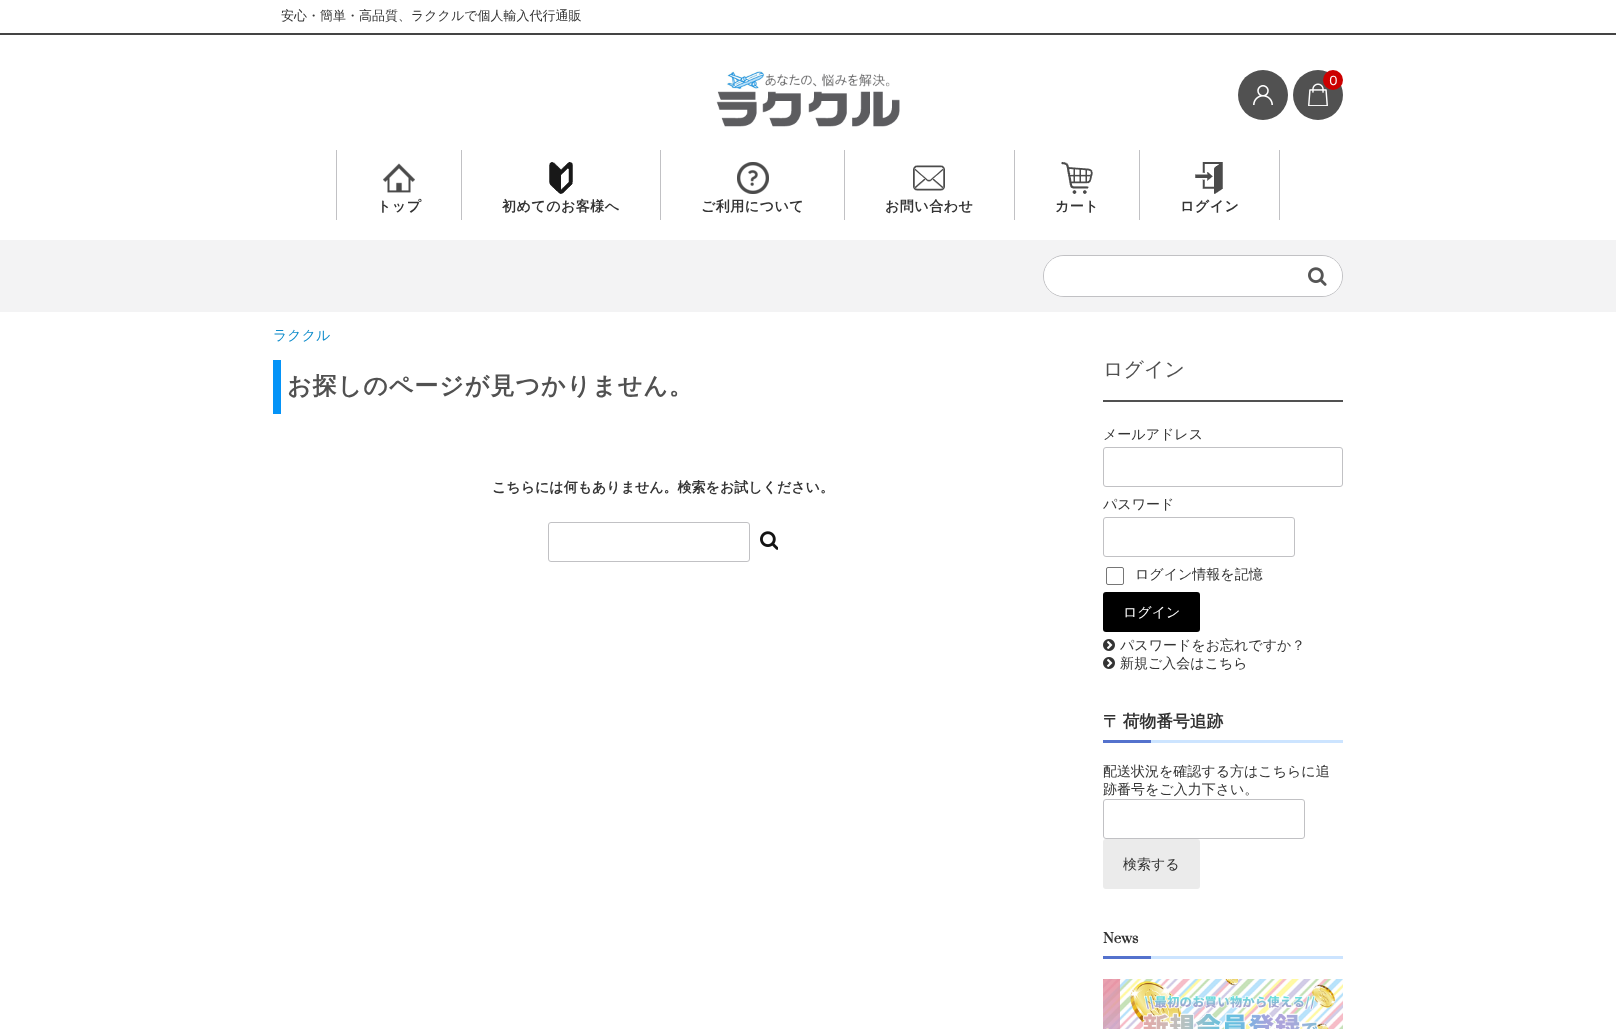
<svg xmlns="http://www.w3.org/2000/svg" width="1616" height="1029">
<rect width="100%" height="100%" fill="#fff"/>
<text x="281" y="20" style="font-family:WenQuanYi Zen Hei;font-size:13px;font-weight:500;fill:#333">安心・簡単・高品質、ラククルで個人輸入代行通販</text>
<rect y="33" width="1616" height="2" fill="#444"/>
<image x="716" y="70" width="184" height="57" href="media/1.png"/>
<circle cx="1263" cy="95" r="25" fill="#515151"/>
<image x="1253" y="85" width="20" height="20" href="media/2.png"/>
<circle cx="1318" cy="95" r="25" fill="#515151"/>
<image x="1308" y="83" width="20" height="23" href="media/3.png"/>
<circle cx="1333" cy="80" r="10" fill="#c00"/>
<text x="1329" y="85" style="font-family:Work Sans;font-size:14px;fill:#fff">0</text>
<rect x="461" y="150" width="1" height="70" fill="#c1c1c4"/>
<rect x="336" y="150" width="1" height="70" fill="#c1c1c4"/>
<image x="383" y="163" width="32" height="30" href="media/4.png"/>
<text x="377" y="211" style="font-family:WenQuanYi Zen Hei;font-size:14px;font-weight:bold;letter-spacing:0.5px;fill:#333">トップ</text>
<rect x="660" y="150" width="1" height="70" fill="#c1c1c4"/>
<image x="549" y="162" width="24" height="32" href="media/5.png"/>
<text x="502" y="211" style="font-family:WenQuanYi Zen Hei;font-size:14px;font-weight:bold;letter-spacing:0.5px;fill:#333">初めてのお客様へ</text>
<rect x="844" y="150" width="1" height="70" fill="#c1c1c4"/>
<image x="737" y="162" width="32" height="32" href="media/6.png"/>
<text x="701" y="211" style="font-family:WenQuanYi Zen Hei;font-size:14px;font-weight:bold;letter-spacing:0.5px;fill:#333">ご利用について</text>
<rect x="1014" y="150" width="1" height="70" fill="#c1c1c4"/>
<image x="913" y="165" width="32" height="26" href="media/7.png"/>
<text x="885" y="211" style="font-family:WenQuanYi Zen Hei;font-size:14px;font-weight:bold;letter-spacing:0.5px;fill:#333">お問い合わせ</text>
<rect x="1139" y="150" width="1" height="70" fill="#c1c1c4"/>
<image x="1061" y="162" width="32" height="32" href="media/8.png"/>
<text x="1055" y="211" style="font-family:WenQuanYi Zen Hei;font-size:14px;font-weight:bold;letter-spacing:0.5px;fill:#333">カート</text>
<rect x="1279" y="150" width="1" height="70" fill="#c1c1c4"/>
<image x="1195" y="162" width="28" height="32" href="media/9.png"/>
<text x="1180" y="211" style="font-family:WenQuanYi Zen Hei;font-size:14px;font-weight:bold;letter-spacing:0.5px;fill:#333">ログイン</text>
<rect y="240" width="1616" height="72" fill="#f3f3f4"/>
<rect x="1043.5" y="255.5" width="299" height="41" rx="20.5" fill="none" stroke="#c1c1c4"/>
<rect x="1044" y="256" width="298" height="40" rx="20" fill="#fff"/>
<image x="1308" y="267" width="19" height="19" href="media/10.png"/>
<text x="273" y="340" style="font-family:WenQuanYi Zen Hei;font-size:14px;font-weight:500;fill:#108dcb">ラククル</text>
<rect x="273" y="360" width="8" height="54" fill="#0493f7"/>
<text x="287" y="394" style="font-family:WenQuanYi Zen Hei;font-size:24px;font-weight:bold;letter-spacing:1px;fill:#515151">お探しのページが見つかりません。</text>
<text x="492" y="492" style="font-family:WenQuanYi Zen Hei;font-size:14px;font-weight:bold;fill:#333">こちらには何もありません。検索をお試しください。</text>
<rect x="548.5" y="522.5" width="201" height="39" rx="2.5" fill="none" stroke="#c1c1c4"/>
<image x="760" y="531" width="18" height="19" href="media/11.png"/>
<rect x="1103" y="400" width="240" height="2" fill="#515151"/>
<text x="1103" y="376" style="font-family:WenQuanYi Zen Hei;font-size:20px;font-weight:500;fill:#515151">ログイン</text>
<text x="1103" y="439" style="font-family:WenQuanYi Zen Hei;font-size:14px;font-weight:500;fill:#333">メールアドレス</text>
<rect x="1103.5" y="447.5" width="239" height="39" rx="2.5" fill="none" stroke="#c1c1c4"/>
<text x="1103" y="509" style="font-family:WenQuanYi Zen Hei;font-size:14px;font-weight:500;fill:#333">パスワード</text>
<rect x="1103.5" y="517.5" width="191" height="39" rx="2.5" fill="none" stroke="#c1c1c4"/>
<rect x="1106.5" y="567.5" width="17" height="17" rx="1.5" fill="none" stroke="#767676"/>
<text x="1135" y="579" style="font-family:WenQuanYi Zen Hei;font-size:14px;font-weight:500;fill:#333">ログイン情報を記憶</text>
<rect x="1103" y="592" width="97" height="40" rx="3" fill="#000"/>
<text x="1123" y="617" style="font-family:WenQuanYi Zen Hei;font-size:14px;font-weight:500;fill:#fff">ログイン</text>
<image x="1103" y="639" width="12" height="12" href="media/12.png"/>
<text x="1120" y="650" style="font-family:WenQuanYi Zen Hei;font-size:14px;font-weight:500;fill:#333">パスワードをお忘れですか？</text>
<image x="1103" y="657" width="12" height="12" href="media/12.png"/>
<text x="1120" y="668" style="font-family:WenQuanYi Zen Hei;font-size:14px;font-weight:500;fill:#333">新規ご入会はこちら</text>
<rect x="1151" y="740" width="192" height="3" fill="#cce4ff"/>
<text x="1103" y="727" word-spacing="-2" style="font-family:WenQuanYi Zen Hei;font-size:16.75px;font-weight:bold;fill:#333">〒 荷物番号追跡</text>
<rect x="1103" y="740" width="48" height="3" fill="#5472cd"/>
<text x="1103" y="776" style="font-family:WenQuanYi Zen Hei;font-size:14px;font-weight:500;fill:#333">配送状況を確認する方はこちらに追</text>
<text x="1103" y="794" style="font-family:WenQuanYi Zen Hei;font-size:14px;font-weight:500;fill:#333">跡番号をご入力下さい。</text>
<rect x="1103.5" y="799.5" width="201" height="39" rx="2.5" fill="none" stroke="#c1c1c4"/>
<rect x="1103" y="839" width="97" height="50" rx="3" fill="#ebebeb"/>
<text x="1123" y="869" style="font-family:WenQuanYi Zen Hei;font-size:14px;font-weight:500;fill:#333">検索する</text>
<rect x="1151" y="956" width="192" height="3" fill="#cce4ff"/>
<text x="1103" y="943" style="font-family:Suranna;font-size:16.75px;font-weight:bold;fill:#333">News</text>
<rect x="1103" y="956" width="48" height="3" fill="#5472cd"/>
<image x="1103" y="979" width="240" height="50" href="media/13.png"/>
</svg>
